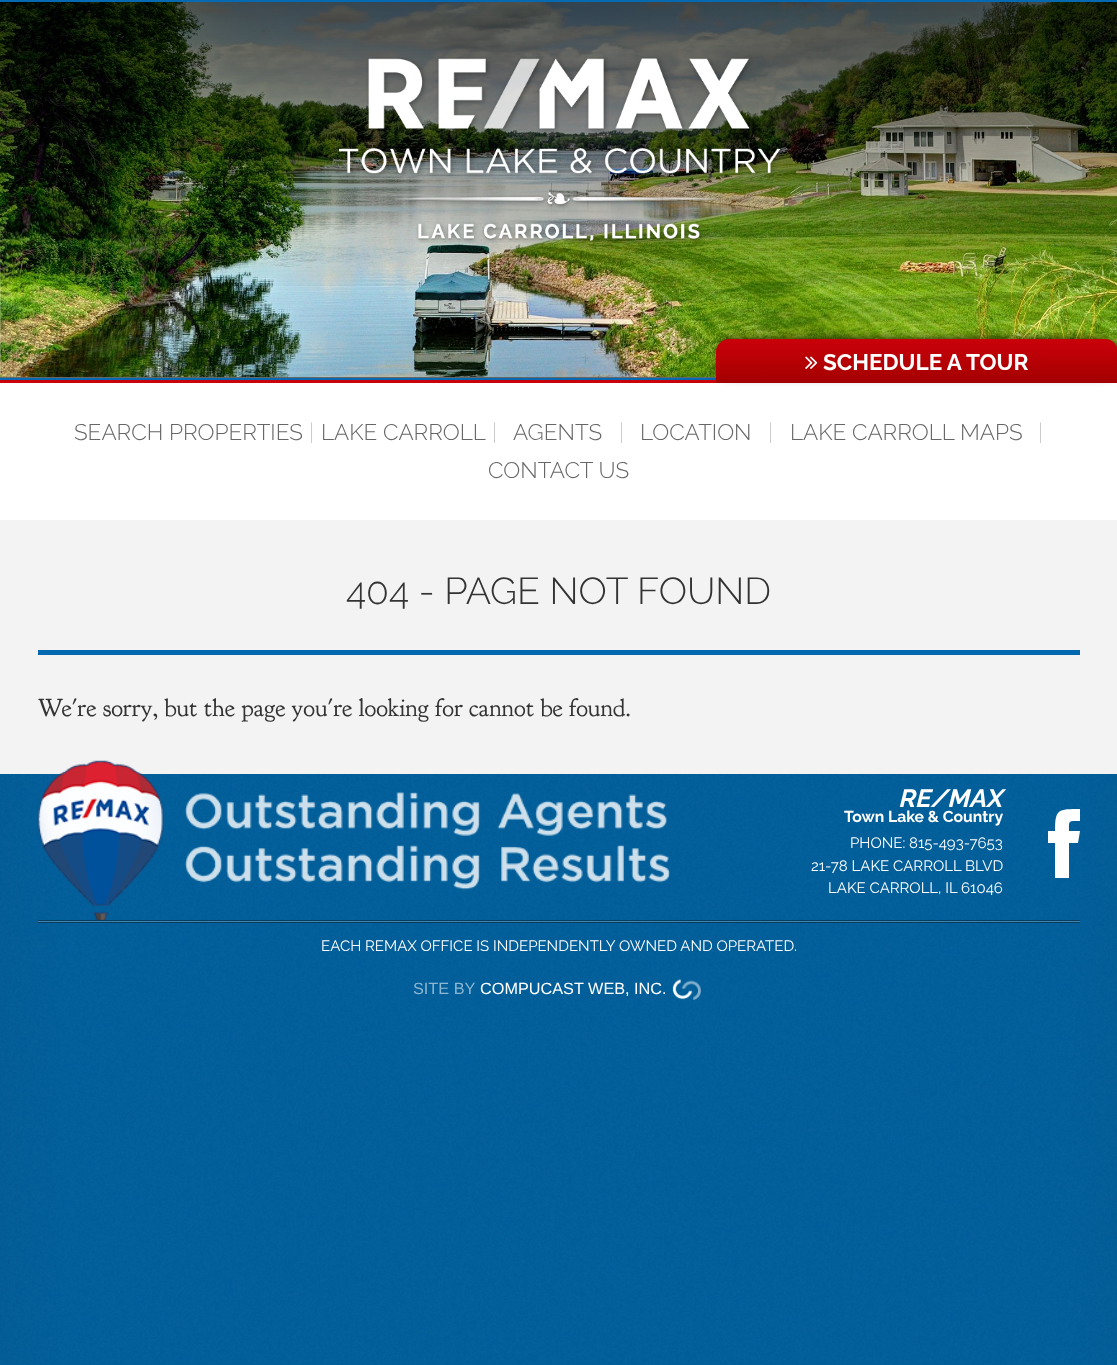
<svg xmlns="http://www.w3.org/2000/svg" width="1117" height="1365">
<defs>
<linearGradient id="g1" gradientUnits="userSpaceOnUse" x1="917" y1="383" x2="917" y2="339"><stop offset="0" stop-color="#a30000"/><stop offset="1" stop-color="#ca010a"/></linearGradient>
</defs>
<rect width="100%" height="100%" fill="#005e99"/>
<image x="0" y="774" width="1117" height="590" href="media/1.png"/>
<rect width="1117" height="2" fill="#056ab2"/>
<rect y="378" width="716" height="2" fill="#056ab2"/>
<rect y="377" width="716" height="1" fill="#666"/>
<image x="0" y="2" width="1117" height="375" href="media/2.png"/>
<image x="0" y="2" width="1117" height="284" href="media/3.png"/>
<image x="339" y="57" width="444" height="186" href="media/4.png"/>
<rect y="383" width="1117" height="137" fill="#fff"/>
<rect y="380" width="716" height="3" fill="#ca010a"/>
<rect x="721" y="340" width="392" height="34" rx="8" fill="#000" filter="blur(6px)"/>
<path d="M729 339h376c7 0 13 6 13 13v31h-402v-31c0-7 6-13 13-13z" fill="url(#g1)"/>
<image x="805" y="356" width="13" height="13" href="media/5.png"/>
<text x="823" y="370" style="font-family:Raleway;font-size:22.5px;font-weight:bold;fill:#fff">SCHEDULE A TOUR</text>
<text x="74" y="440" style="font-family:Raleway;font-size:22.5px;font-weight:300;fill:#666">SEARCH PROPERTIES</text>
<text x="309" y="440" style="font-family:Raleway;font-size:22.5px;font-weight:300;fill:#ccc">|</text>
<text x="321" y="440" style="font-family:Raleway;font-size:22.5px;font-weight:300;fill:#666">LAKE CARROLL</text>
<text x="492" y="440" style="font-family:Raleway;font-size:22.5px;font-weight:300;fill:#ccc">|</text>
<text x="513" y="440" style="font-family:Raleway;font-size:22.5px;font-weight:300;fill:#666">AGENTS</text>
<text x="619" y="440" style="font-family:Raleway;font-size:22.5px;font-weight:300;fill:#ccc">|</text>
<text x="640" y="440" style="font-family:Raleway;font-size:22.5px;font-weight:300;fill:#666">LOCATION</text>
<text x="768" y="440" style="font-family:Raleway;font-size:22.5px;font-weight:300;fill:#ccc">|</text>
<text x="790" y="440" style="font-family:Raleway;font-size:22.5px;font-weight:300;fill:#666">LAKE CARROLL MAPS</text>
<text x="1038" y="440" style="font-family:Raleway;font-size:22.5px;font-weight:300;fill:#ccc">|</text>
<text x="488" y="478" style="font-family:Raleway;font-size:22.5px;font-weight:300;fill:#666">CONTACT US</text>
<rect y="520" width="1117" height="254" fill="#f3f3f3"/>
<rect x="38" y="650" width="1042" height="5" fill="#0269b0"/>
<text x="346" y="604" style="font-family:Raleway;font-size:37.5px;font-weight:300;fill:#333">404 - PAGE NOT FOUND</text>
<text x="38" y="716" style="font-family:'Goudy Bookletter 1911';font-size:25px;fill:#333">We're sorry, but the page you're looking for cannot be found.</text>
<image x="37" y="760" width="633" height="160" href="media/6.png"/>
<text x="898" y="807" style="font-family:Raleway;font-size:25px;font-weight:bold;font-style:italic;fill:#fff">RE/MAX</text>
<text x="844" y="822" style="font-family:Raleway;font-size:15.75px;font-weight:bold;fill:#fff">Town Lake &amp; Country</text>
<text x="850" y="848" style="font-family:Raleway;font-size:15px;fill:#fff">PHONE: 815-493-7653</text>
<text x="811" y="871" style="font-family:Raleway;font-size:15px;fill:#fff">21-78 LAKE CARROLL BLVD</text>
<text x="828" y="893" style="font-family:Raleway;font-size:15px;fill:#fff">LAKE CARROLL, IL</text>
<text x="961" y="893" style="font-family:Raleway;font-size:15px;fill:#fff">61046</text>
<path d="M1069 831h11l-2 12h-9v35h-14v-35h-7v-12h7c0-22 3-22 25-22v12c-12 0-11-1-11 10z" fill="#fff"/>
<rect x="38" y="920" width="1042" height="3" fill="#053d61"/>
<rect x="38" y="921" width="1042" height="1" fill="#4085b1"/>
<text x="321" y="951" style="font-family:Raleway;font-size:15px;fill:#fff">EACH REMAX OFFICE IS INDEPENDENTLY OWNED AND OPERATED.</text>
<text x="413" y="994" style="font-family:Liberation Sans;font-size:16.25px;fill:#8db7d2">SITE BY</text>
<image x="672" y="979" width="29" height="21" href="media/7.png"/>
<text x="480" y="994" style="font-family:Liberation Sans;font-size:16.25px;fill:#fff">COMPUCAST WEB, INC.</text>
</svg>
